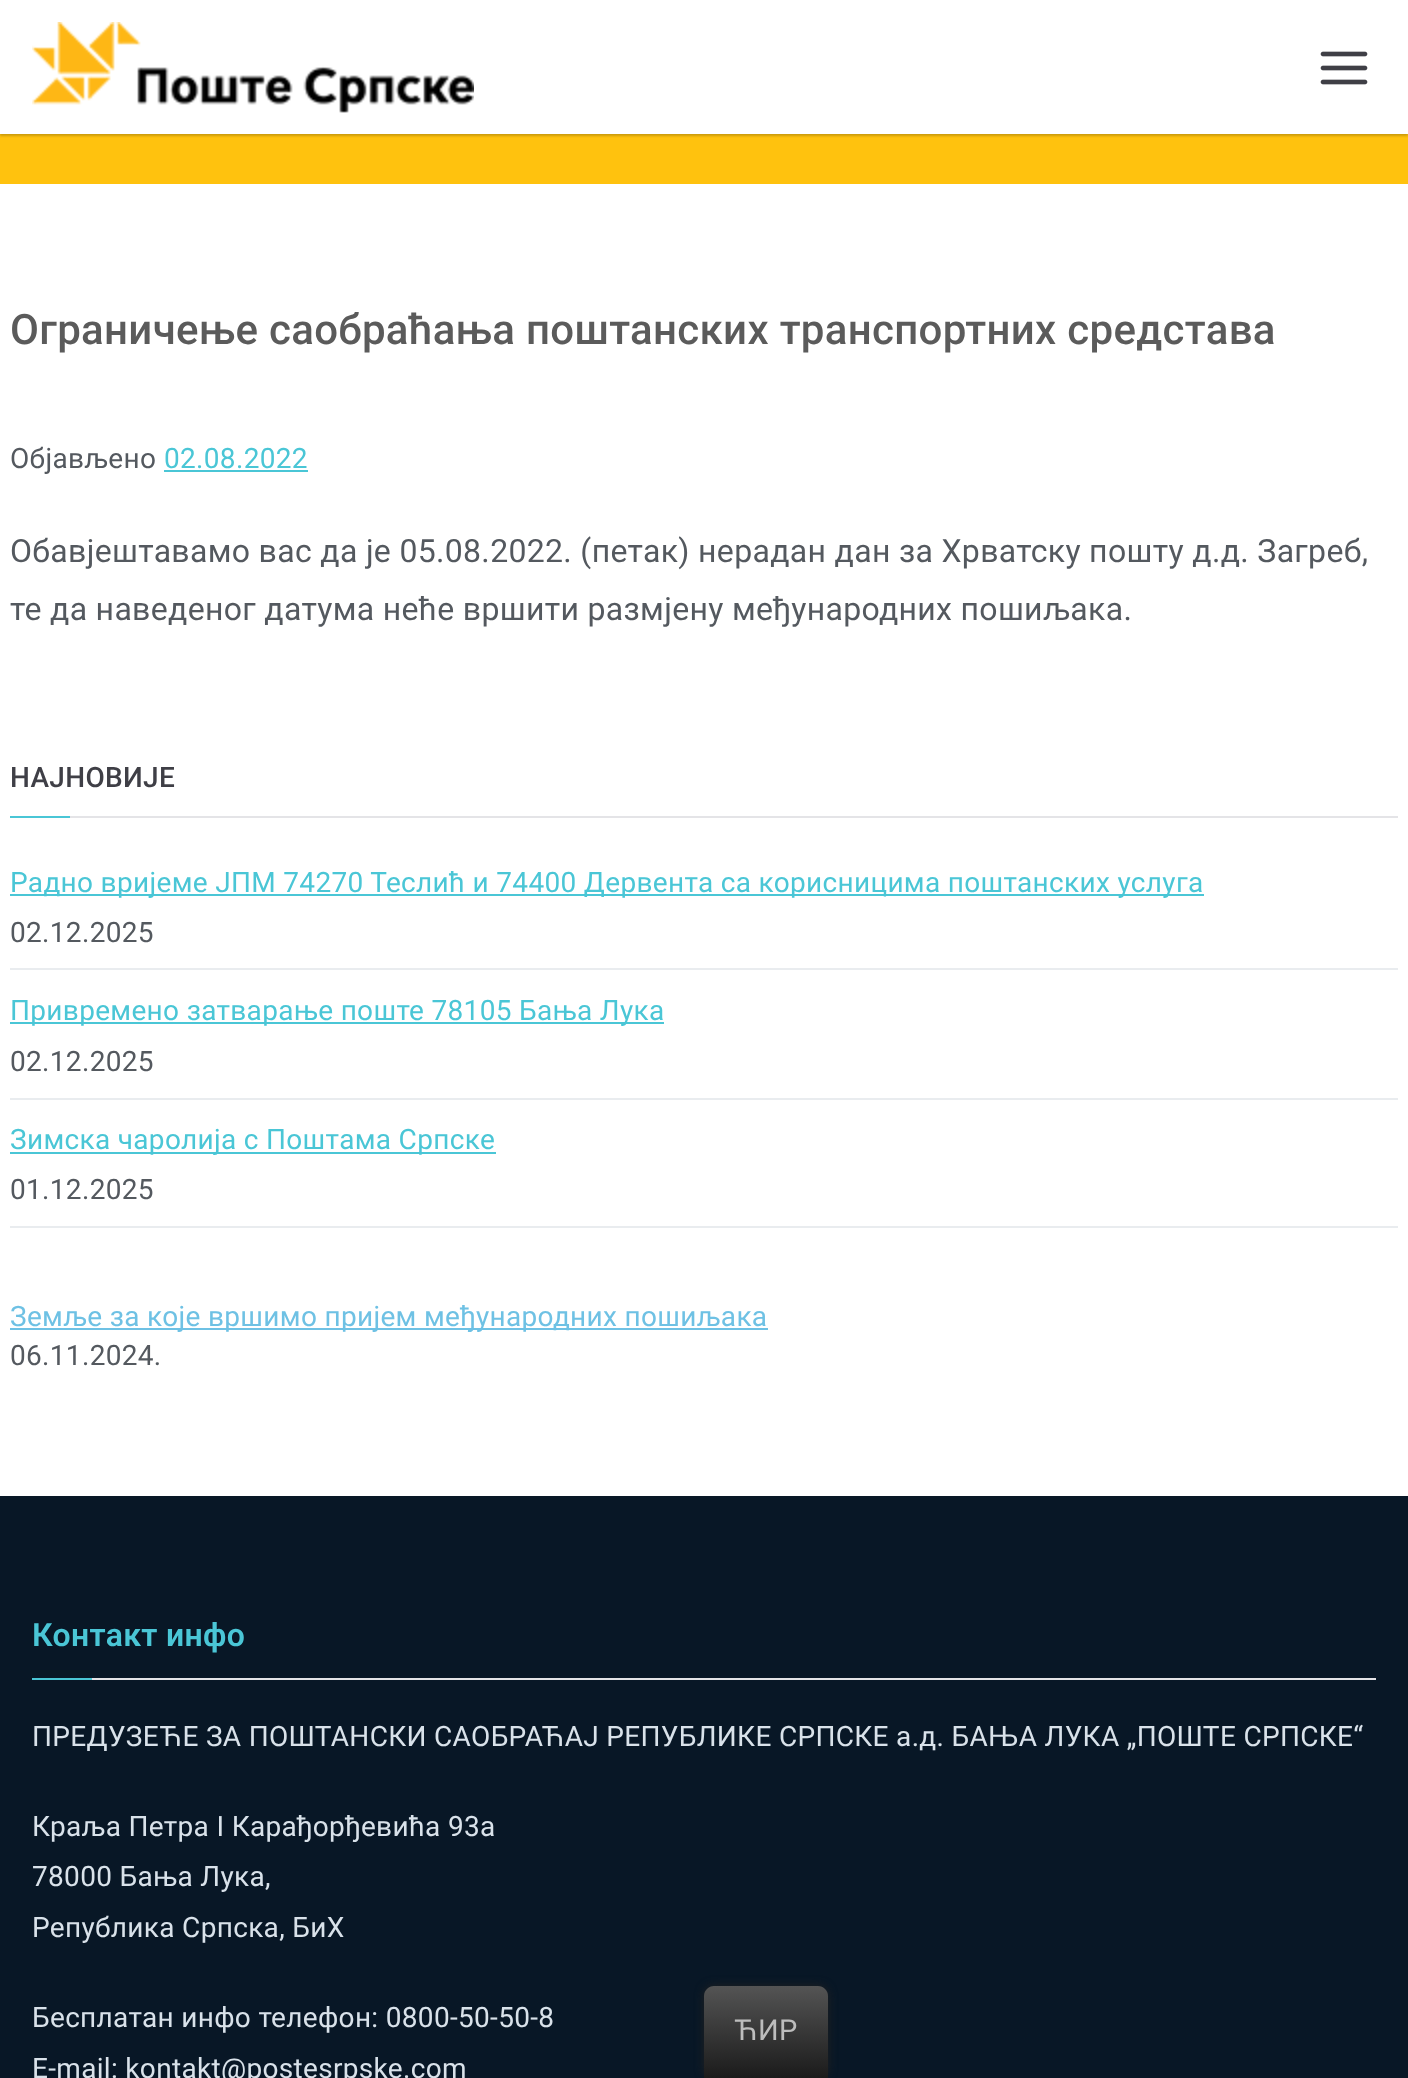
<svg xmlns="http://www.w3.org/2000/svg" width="1408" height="2078">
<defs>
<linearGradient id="g1" gradientUnits="userSpaceOnUse" x1="766" y1="2078" x2="766" y2="1986"><stop offset="0" stop-color="#1b1b1b"/><stop offset="1" stop-color="#545454"/></linearGradient>
</defs>
<rect width="100%" height="100%" fill="#ffc20e"/>
<rect y="2" width="1408" height="134" fill="#00000033" filter="blur(1px)"/>
<rect width="1408" height="134" fill="#fff"/>
<image x="32" y="22" width="442" height="91" href="media/1.png"/>
<image x="1320" y="51" width="48" height="34" href="media/2.png"/>
<rect y="184" width="1408" height="1312" fill="#fff"/>
<text x="10" y="344" style="font-family:Roboto;font-size:42px;font-weight:500;letter-spacing:0.32px;fill:#5b5b5b">Ограничење саобраћања поштанских транспортних средстава</text>
<text x="10" y="468" style="font-family:Roboto;font-size:28px;letter-spacing:0.32px;fill:#54595f">Објављено</text>
<text x="164" y="468" style="font-family:Roboto;font-size:28px;letter-spacing:0.32px;fill:#4ac6d6">02.08.2022</text>
<rect x="164" y="470" width="144" height="2" fill="#4ac6d6"/>
<text x="10" y="562" style="font-family:Roboto;font-size:32px;letter-spacing:0.32px;fill:#54595f">Обавјештавамо вас да је 05.08.2022. (петак) нерадан дан за Хрватску пошту д.д. Загреб,</text>
<text x="10" y="620" style="font-family:Roboto;font-size:32px;letter-spacing:0.32px;fill:#54595f">те да наведеног датума неће вршити размјену међународних пошиљака.</text>
<rect x="70" y="816" width="1328" height="2" fill="#e4e4e7"/>
<text x="10" y="787" style="font-family:Roboto;font-size:28px;font-weight:500;letter-spacing:0.32px;fill:#3f3f46">НАЈНОВИЈЕ</text>
<rect x="10" y="816" width="60" height="2" fill="#4ac6d6"/>
<rect x="10" y="968" width="1388" height="2" fill="#e9ecef"/>
<rect x="10" y="894" width="1194" height="2" fill="#4ac6d6"/>
<text x="10" y="892" style="font-family:Roboto;font-size:28px;letter-spacing:0.32px;fill:#4ac6d6">Радно вријеме ЈПМ 74270 Теслић и 74400 Дервента са корисницима поштанских услуга</text>
<text x="10" y="942" style="font-family:Roboto;font-size:28px;letter-spacing:0.32px;fill:#54595f">02.12.2025</text>
<rect x="10" y="1098" width="1388" height="2" fill="#e9ecef"/>
<rect x="10" y="1022" width="654" height="2" fill="#4ac6d6"/>
<text x="10" y="1020" style="font-family:Roboto;font-size:28px;letter-spacing:0.32px;fill:#4ac6d6">Привремено затварање поште 78105 Бања Лука</text>
<text x="10" y="1071" style="font-family:Roboto;font-size:28px;letter-spacing:0.32px;fill:#54595f">02.12.2025</text>
<rect x="10" y="1226" width="1388" height="2" fill="#e9ecef"/>
<rect x="10" y="1152" width="486" height="2" fill="#4ac6d6"/>
<text x="10" y="1149" style="font-family:Roboto;font-size:28px;letter-spacing:0.32px;fill:#4ac6d6">Зимска чаролија с Поштама Српске</text>
<text x="10" y="1199" style="font-family:Roboto;font-size:28px;letter-spacing:0.32px;fill:#54595f">01.12.2025</text>
<rect x="10" y="1328" width="758" height="2" fill="#6ec1e4"/>
<text x="10" y="1326" style="font-family:Roboto;font-size:28px;letter-spacing:0.32px;fill:#6ec1e4">Земље за које вршимо пријем међународних пошиљака</text>
<text x="10" y="1365" style="font-family:Roboto;font-size:28px;letter-spacing:0.32px;fill:#54595f">06.11.2024.</text>
<rect y="1496" width="1408" height="582" fill="#081726"/>
<rect x="92" y="1678" width="1284" height="2" fill="#e4e4e7"/>
<text x="32" y="1646" style="font-family:Roboto;font-size:32px;font-weight:600;letter-spacing:0.32px;fill:#4ac6d6">Контакт инфо</text>
<rect x="32" y="1678" width="60" height="2" fill="#4ac6d6"/>
<text x="32" y="1746" style="font-family:Roboto;font-size:28px;letter-spacing:0.32px;fill:#d9e2ea">ПРЕДУЗЕЋЕ ЗА ПОШТАНСКИ САОБРАЋАЈ РЕПУБЛИКЕ СРПСКЕ а.д. БАЊА ЛУКА „ПОШТЕ СРПСКЕ“</text>
<text x="32" y="1836" style="font-family:Roboto;font-size:28px;letter-spacing:0.32px;fill:#d9e2ea">Краља Петра I Карађорђевића 93а</text>
<text x="32" y="1886" style="font-family:Roboto;font-size:28px;letter-spacing:0.32px;fill:#d9e2ea">78000 Бања Лука,</text>
<text x="32" y="1937" style="font-family:Roboto;font-size:28px;letter-spacing:0.32px;fill:#d9e2ea">Република Српска, БиХ</text>
<text x="32" y="2027" style="font-family:Roboto;font-size:28px;letter-spacing:0.32px;fill:#d9e2ea">Бесплатан инфо телефон: 0800-50-50-8</text>
<text x="32" y="2078" style="font-family:Roboto;font-size:28px;letter-spacing:0.32px;fill:#d9e2ea">E-mail: kontakt@postesrpske.com</text>
<rect x="704" y="1986" width="124" height="92" rx="10" fill="#212121" filter="blur(5px)"/>
<path d="M714 1986h104c5.5 0 10 4.5 10 10v82h-124v-82c0-5.5 4.5-10 10-10z" fill="url(#g1)"/>
<text x="734" y="2040" style="font-family:Roboto;font-size:29px;letter-spacing:0.32px;fill:#bdbdbd">ЋИР</text>
</svg>
